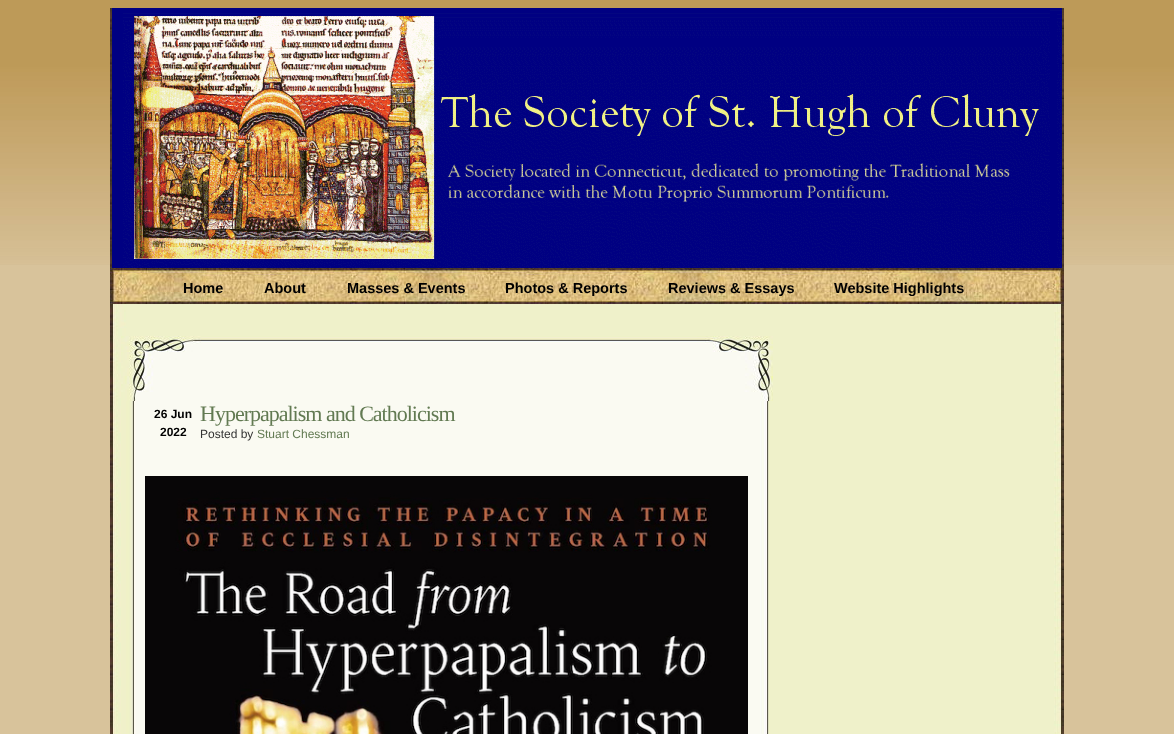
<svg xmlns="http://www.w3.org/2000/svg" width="1174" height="734">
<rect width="100%" height="100%" fill="#d8c39b"/>
<image x="0" y="0" width="1174" height="265" href="media/1.png"/>
<image x="110" y="8" width="954" height="260" href="media/2.png"/>
<image x="112" y="8" width="950" height="260" href="media/3.png"/>
<image x="110" y="268" width="954" height="36" href="media/4.png"/>
<text x="183" y="293" style="font-family:Liberation Sans;font-size:14.5px;font-weight:bold;fill:#000">Home</text>
<text x="264" y="293" style="font-family:Liberation Sans;font-size:14.5px;font-weight:bold;fill:#000">About</text>
<text x="347" y="293" style="font-family:Liberation Sans;font-size:14.5px;font-weight:bold;fill:#000">Masses &amp; Events</text>
<text x="505" y="293" style="font-family:Liberation Sans;font-size:14.5px;font-weight:bold;fill:#000">Photos &amp; Reports</text>
<text x="668" y="293" style="font-family:Liberation Sans;font-size:14.5px;font-weight:bold;fill:#000">Reviews &amp; Essays</text>
<text x="834" y="293" style="font-family:Liberation Sans;font-size:14.5px;font-weight:bold;fill:#000">Website Highlights</text>
<image x="110" y="304" width="954" height="430" href="media/5.png"/>
<image x="121" y="336" width="652" height="65" href="media/6.png"/>
<image x="121" y="401" width="649" height="333" href="media/7.png"/>
<text x="154" y="418" style="font-family:Liberation Sans;font-size:12px;font-weight:bold;fill:#000">26 Jun</text>
<text x="160" y="436" style="font-family:Liberation Sans;font-size:12px;font-weight:bold;fill:#000">2022</text>
<text x="200" y="421" style="font-family:Liberation Serif;font-size:22px;letter-spacing:-1px;fill:#627a52">Hyperpapalism and Catholicism</text>
<text x="200" y="438" style="font-family:Liberation Sans;font-size:12px;fill:#333">Posted by</text>
<text x="257" y="438" style="font-family:Liberation Sans;font-size:12px;fill:#627a52">Stuart Chessman</text>
<image x="145" y="476" width="603" height="258" href="media/8.png"/>
</svg>
